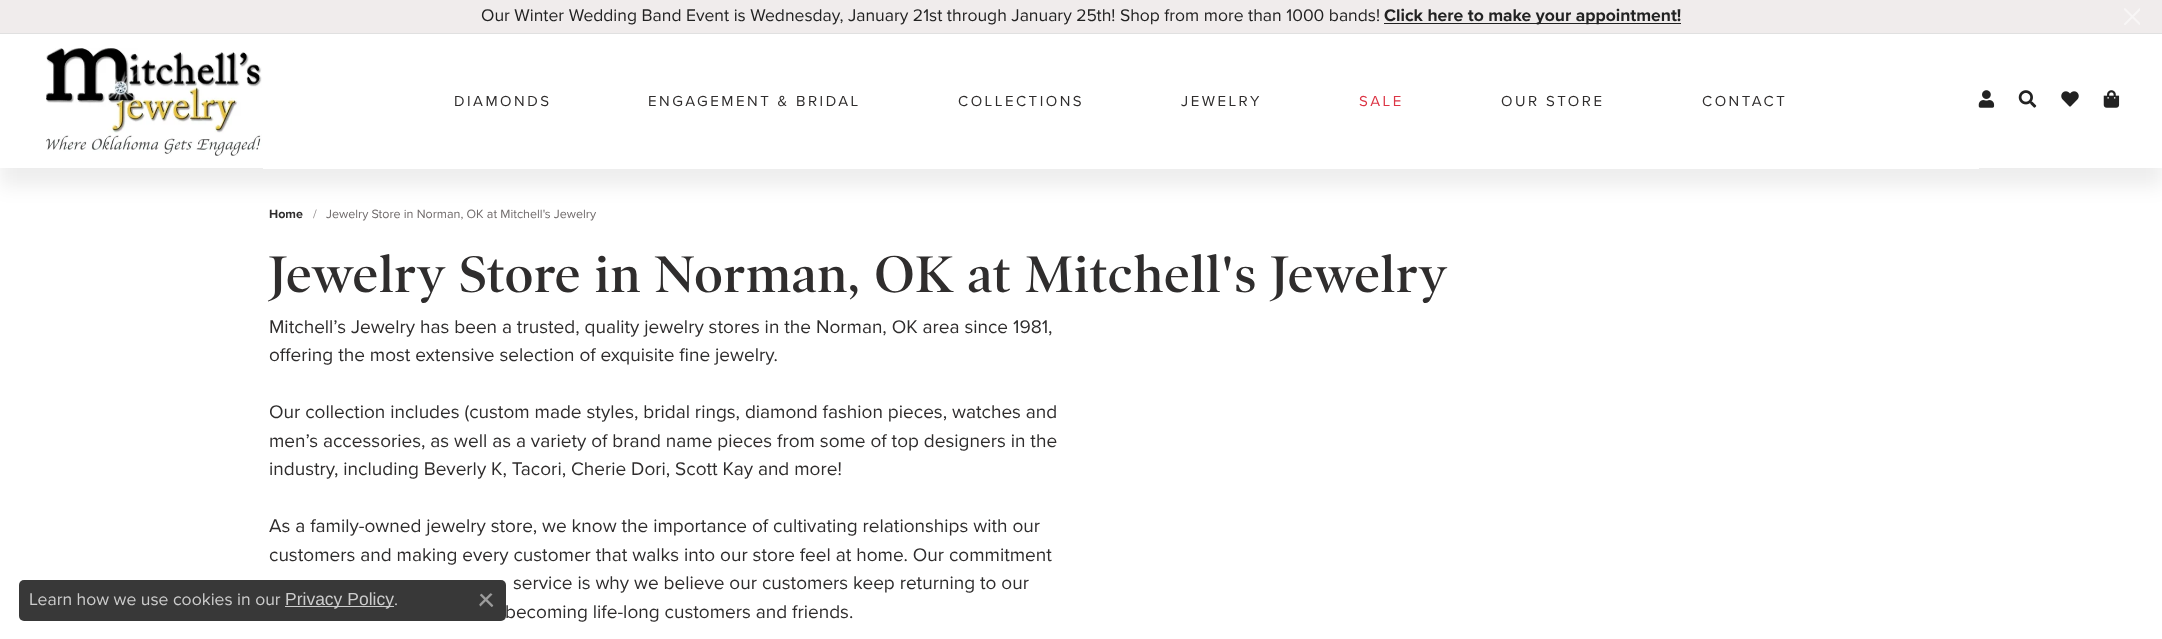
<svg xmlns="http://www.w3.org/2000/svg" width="2162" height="639">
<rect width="100%" height="100%" fill="#f0ecec"/>
<rect y="33" width="2162" height="1" fill="#e0e0e0"/>
<text x="481" y="21" style="font-family:Proxima Nova;font-size:17.5px;fill:#222">Our Winter Wedding Band Event is Wednesday, January 21st through January 25th! Shop from more than 1000 bands!</text>
<rect x="1384" y="23" width="297" height="1" fill="#222"/>
<text x="1384" y="21" style="font-family:Proxima Nova;font-size:17.5px;font-weight:bold;fill:#222">Click here to make your appointment!</text>
<image x="2124" y="8" width="16" height="17" href="media/1.png"/>
<rect y="168" width="2162" height="471" fill="#fff"/>
<rect y="53" width="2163" height="133" fill="#00000012" filter="blur(9.5px)"/>
<rect y="34" width="2162" height="134" fill="#fff"/>
<image x="46" y="48" width="216" height="108" href="media/2.png"/>
<rect x="263" y="168" width="1716" height="1" fill="#fff"/>
<text x="454" y="106" style="font-family:Proxima Nova;font-size:15px;letter-spacing:2.5px;fill:#2f2d2d">DIAMONDS</text>
<text x="648" y="106" style="font-family:Proxima Nova;font-size:15px;letter-spacing:2.5px;fill:#2f2d2d">ENGAGEMENT &amp; BRIDAL</text>
<text x="958" y="106" style="font-family:Proxima Nova;font-size:15px;letter-spacing:2.5px;fill:#2f2d2d">COLLECTIONS</text>
<text x="1181" y="106" style="font-family:Proxima Nova;font-size:15px;letter-spacing:2.5px;fill:#2f2d2d">JEWELRY</text>
<text x="1359" y="106" style="font-family:Proxima Nova;font-size:15px;letter-spacing:2.5px;fill:#dc3545">SALE</text>
<text x="1501" y="106" style="font-family:Proxima Nova;font-size:15px;letter-spacing:2.5px;fill:#2f2d2d">OUR STORE</text>
<text x="1702" y="106" style="font-family:Proxima Nova;font-size:15px;letter-spacing:2.5px;fill:#2f2d2d">CONTACT</text>
<image x="1978" y="90" width="17" height="18" href="media/3.png"/>
<image x="2018" y="90" width="19" height="18" href="media/4.png"/>
<image x="2061" y="91" width="18" height="16" href="media/5.png"/>
<image x="2103" y="90" width="17" height="18" href="media/6.png"/>
<rect x="19" y="580" width="487" height="41" rx="5" fill="#222222e6"/>
<text x="29" y="605" style="font-family:Proxima Nova;font-size:17.5px;fill:#ccc">Learn how we use cookies in our</text>
<rect x="285" y="606" width="109" height="1" fill="#ccc"/>
<text x="285" y="605" style="font-family:Liberation Sans;font-size:17.5px;fill:#ccc">Privacy Policy</text>
<text x="394" y="605" style="font-family:Proxima Nova;font-size:17.5px;fill:#ccc">.</text>
<image x="479" y="593" width="15" height="14" href="media/7.png"/>
<text x="269" y="218" style="font-family:Proxima Nova;font-size:12.5px;font-weight:bold;fill:#2f2d2d">Home</text>
<text x="313" y="218" style="font-family:Proxima Nova;font-size:12.5px;fill:#938e8e">/</text>
<text x="326" y="218" style="font-family:Proxima Nova;font-size:12.5px;fill:#706b6b">Jewelry Store in Norman, OK at Mitchell's Jewelry</text>
<text x="269" y="292" style="font-family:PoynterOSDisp;font-size:52px;font-weight:600;letter-spacing:1px;fill:#2f2d2d">Jewelry Store in Norman, OK at Mitchell's Jewelry</text>
<text x="269" y="333" style="font-family:Proxima Nova;font-size:19px;fill:#2f2d2d">Mitchell’s Jewelry has been a trusted, quality jewelry stores in the Norman, OK area since 1981,</text>
<text x="269" y="361" style="font-family:Proxima Nova;font-size:19px;fill:#2f2d2d">offering the most extensive selection of exquisite fine jewelry.</text>
<text x="269" y="418" style="font-family:Proxima Nova;font-size:19px;fill:#2f2d2d">Our collection includes (custom made styles, bridal rings, diamond fashion pieces, watches and</text>
<text x="269" y="447" style="font-family:Proxima Nova;font-size:19px;fill:#2f2d2d">men’s accessories, as well as a variety of brand name pieces from some of top designers in the</text>
<text x="269" y="475" style="font-family:Proxima Nova;font-size:19px;fill:#2f2d2d">industry, including Beverly K, Tacori, Cherie Dori, Scott Kay and more!</text>
<text x="269" y="532" style="font-family:Proxima Nova;font-size:19px;fill:#2f2d2d">As a family-owned jewelry store, we know the importance of cultivating relationships with our</text>
<text x="269" y="561" style="font-family:Proxima Nova;font-size:19px;fill:#2f2d2d">customers and making every customer that walks into our store feel at home. Our commitment</text>
<text x="513" y="589" style="font-family:Proxima Nova;font-size:19px;fill:#2f2d2d">service is why we believe our customers keep returning to our</text>
<text x="505" y="618" style="font-family:Proxima Nova;font-size:19px;fill:#2f2d2d">becoming life-long customers and friends.</text>
</svg>
